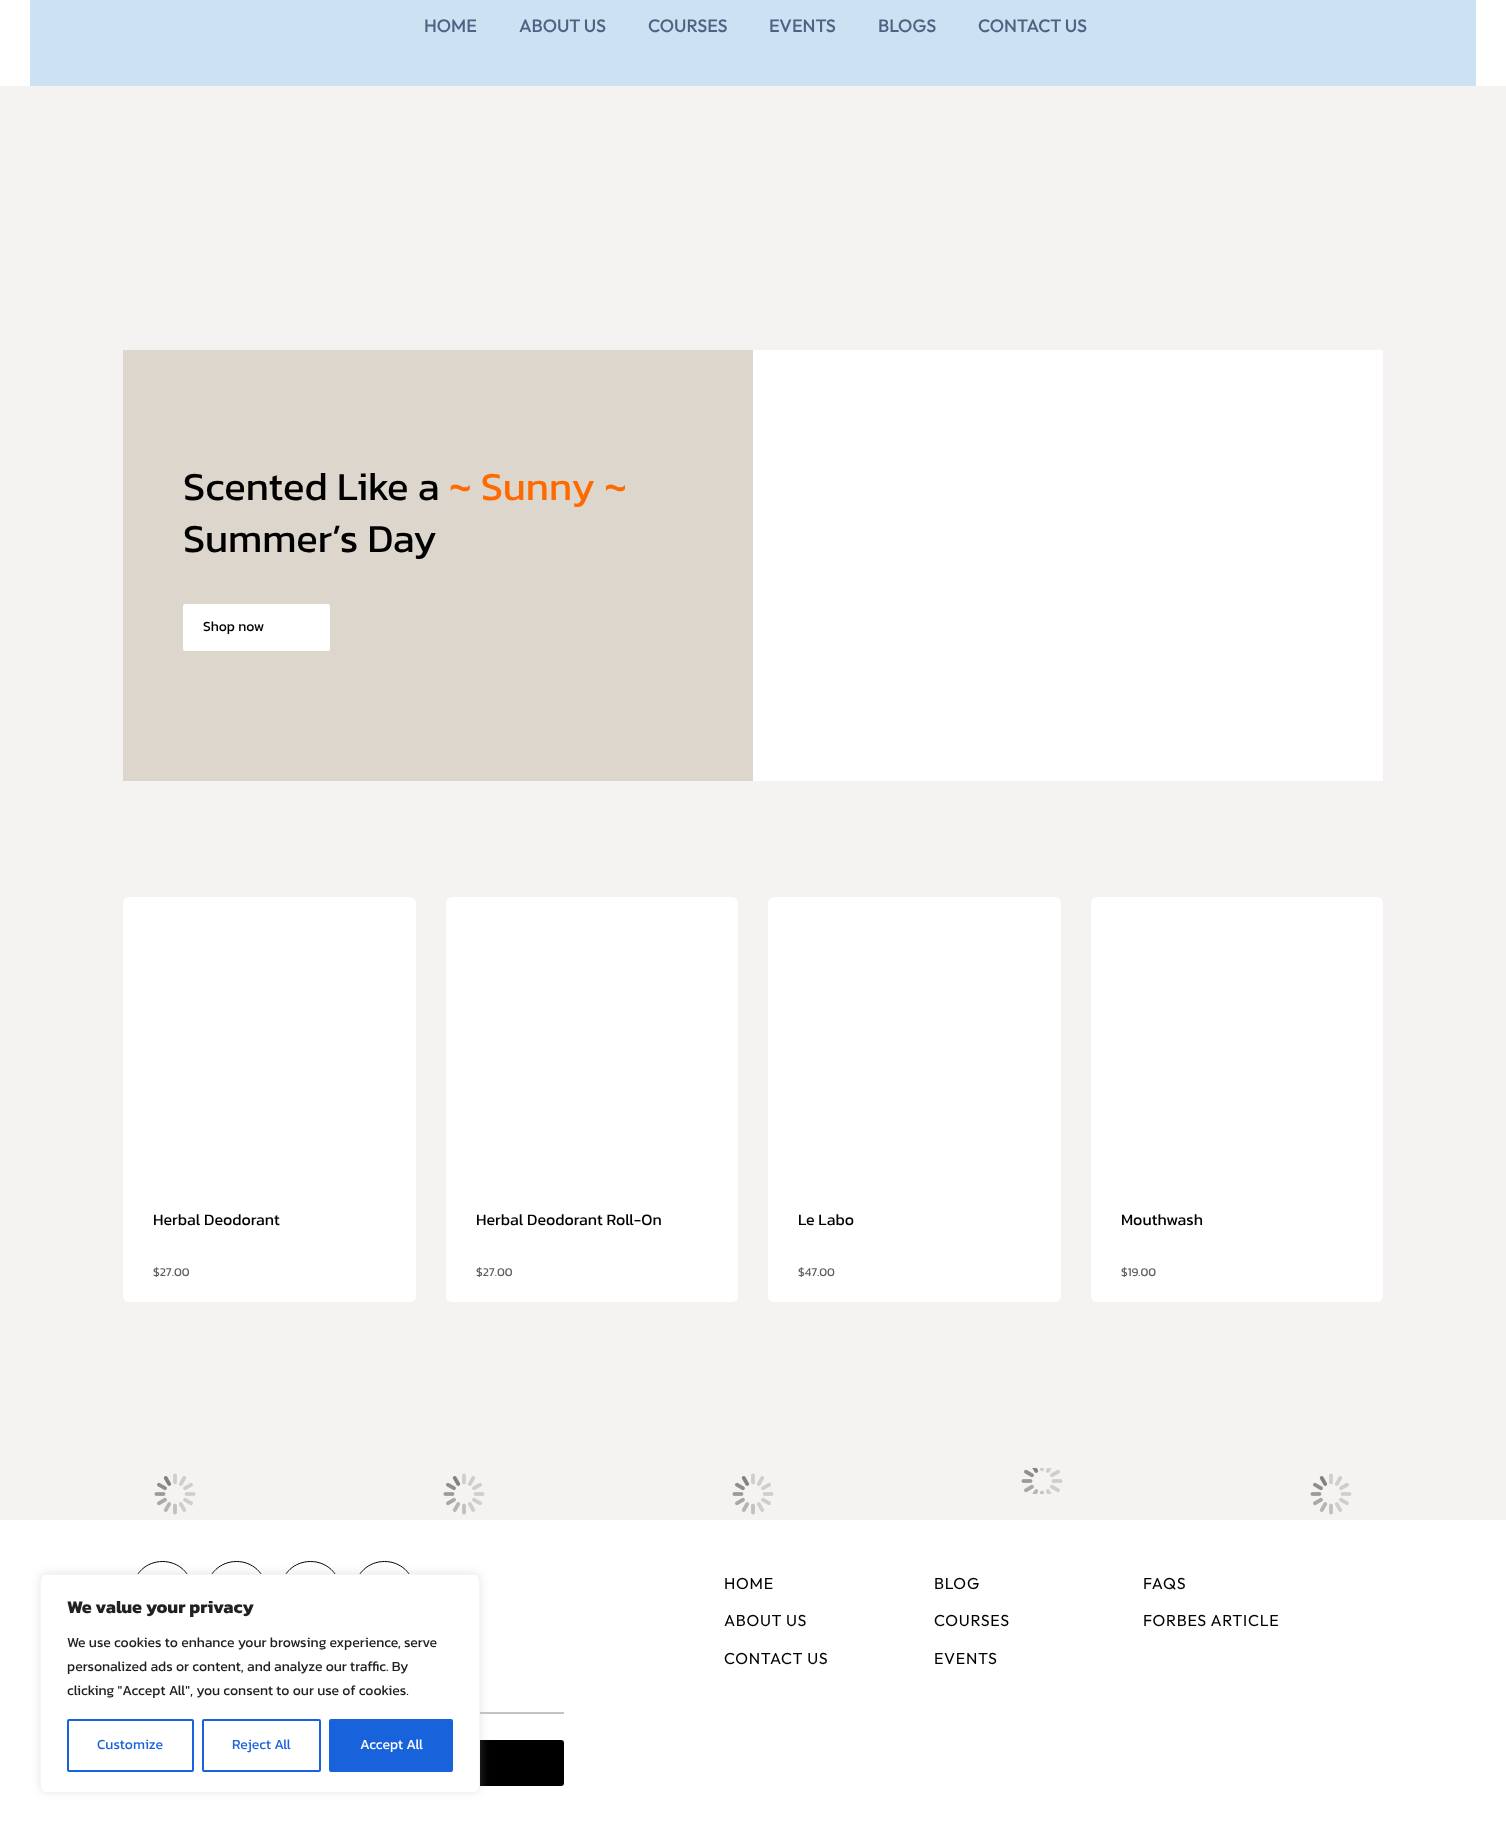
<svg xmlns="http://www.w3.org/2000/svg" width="1506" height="1833">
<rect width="100%" height="100%" fill="#f5f3f1"/>
<rect width="1506" height="86" fill="#fff"/>
<rect x="30" width="1446" height="86" fill="#cbe2f2"/>
<text x="424" y="32" style="font-family:Outfit;font-size:18px;font-weight:500;fill:#506283">HOME</text>
<text x="519" y="32" style="font-family:Outfit;font-size:18px;font-weight:500;fill:#506283">ABOUT US</text>
<text x="648" y="32" style="font-family:Outfit;font-size:18px;font-weight:500;fill:#506283">COURSES</text>
<text x="769" y="32" style="font-family:Outfit;font-size:18px;font-weight:500;fill:#506283">EVENTS</text>
<text x="878" y="32" style="font-family:Outfit;font-size:18px;font-weight:500;fill:#506283">BLOGS</text>
<text x="978" y="32" style="font-family:Outfit;font-size:18px;font-weight:500;fill:#506283">CONTACT US</text>
<rect x="123" y="350" width="630" height="431" fill="#dcd6cc"/>
<text x="183" y="500" style="font-family:Kanit;font-size:40px;fill:#000">Scented Like a</text>
<text x="449" y="500" style="font-family:Kanit;font-size:40px;fill:#ff6a00">~ Sunny ~</text>
<text x="183" y="552" style="font-family:Kanit;font-size:40px;fill:#000">Summer’s Day</text>
<rect x="183" y="604" width="147" height="47" rx="2" fill="#fff"/>
<text x="203" y="631" style="font-family:Kanit;font-size:14px;fill:#000">Shop now</text>
<rect x="753" y="350" width="630" height="431" fill="#fff"/>
<rect x="123" y="897" width="293" height="405" rx="6" fill="#fff"/>
<text x="153" y="1225" style="font-family:Kanit;font-size:16px;fill:#000">Herbal Deodorant</text>
<text x="153" y="1276" style="font-family:Kanit;font-size:12px;fill:#5e5e5e">$27.00</text>
<rect x="446" y="897" width="292" height="405" rx="6" fill="#fff"/>
<text x="476" y="1225" style="font-family:Kanit;font-size:16px;fill:#000">Herbal Deodorant Roll-On</text>
<text x="476" y="1276" style="font-family:Kanit;font-size:12px;fill:#5e5e5e">$27.00</text>
<rect x="768" y="897" width="293" height="405" rx="6" fill="#fff"/>
<text x="798" y="1225" style="font-family:Kanit;font-size:16px;fill:#000">Le Labo</text>
<text x="798" y="1276" style="font-family:Kanit;font-size:12px;fill:#5e5e5e">$47.00</text>
<rect x="1091" y="897" width="292" height="405" rx="6" fill="#fff"/>
<text x="1121" y="1225" style="font-family:Kanit;font-size:16px;fill:#000">Mouthwash</text>
<text x="1121" y="1276" style="font-family:Kanit;font-size:12px;fill:#5e5e5e">$19.00</text>
<image x="154" y="1473" width="42" height="42" href="media/1.png"/>
<image x="443" y="1473" width="42" height="42" href="media/1.png"/>
<image x="732" y="1473" width="42" height="42" href="media/1.png"/>
<image x="1021" y="1468" width="42" height="26" href="media/2.png"/>
<image x="1310" y="1473" width="42" height="42" href="media/1.png"/>
<rect y="1520" width="1506" height="313" fill="#fff"/>
<path d="M162.5 1561.5c16 0 29 12 29 26.5c0 14.5-13 26.5-29 26.5c-16 0-29-12-29-26.5c0-14.5 13-26.5 29-26.5z" fill="none" stroke="#000"/>
<path d="M236.5 1561.5c16 0 29 12 29 26.5c0 14.5-13 26.5-29 26.5c-16 0-29-12-29-26.5c0-14.5 13-26.5 29-26.5z" fill="none" stroke="#000"/>
<path d="M310.5 1561.5c16 0 29 12 29 26.5c0 14.5-13 26.5-29 26.5c-16 0-29-12-29-26.5c0-14.5 13-26.5 29-26.5z" fill="none" stroke="#000"/>
<path d="M384.5 1561.5c16 0 29 12 29 26.5c0 14.5-13 26.5-29 26.5c-16 0-29-12-29-26.5c0-14.5 13-26.5 29-26.5z" fill="none" stroke="#000"/>
<rect x="480" y="1712" width="84" height="2" fill="#c4c4c4"/>
<rect x="134" y="1741" width="429" height="44" rx="2" fill="#000" stroke="#000" stroke-width="2"/>
<text x="724" y="1589" style="font-family:Outfit;font-size:16px;letter-spacing:0.75px;fill:#000">HOME</text>
<text x="724" y="1626" style="font-family:Outfit;font-size:16px;letter-spacing:0.75px;fill:#000">ABOUT US</text>
<text x="724" y="1664" style="font-family:Outfit;font-size:16px;letter-spacing:0.75px;fill:#000">CONTACT US</text>
<text x="934" y="1589" style="font-family:Outfit;font-size:16px;letter-spacing:0.75px;fill:#000">BLOG</text>
<text x="934" y="1626" style="font-family:Outfit;font-size:16px;letter-spacing:0.75px;fill:#000">COURSES</text>
<text x="934" y="1664" style="font-family:Outfit;font-size:16px;letter-spacing:0.75px;fill:#000">EVENTS</text>
<text x="1143" y="1589" style="font-family:Outfit;font-size:16px;letter-spacing:0.75px;fill:#000">FAQS</text>
<text x="1143" y="1626" style="font-family:Outfit;font-size:16px;letter-spacing:0.75px;fill:#000">FORBES ARTICLE</text>
<rect x="40" y="1573" width="440" height="219" rx="6" fill="#acabab4d" filter="blur(5px)"/>
<rect x="40.5" y="1574.5" width="439" height="218" rx="5.5" fill="#fff" stroke="#f4f4f4"/>
<text x="67" y="1613" style="font-family:Kanit;font-size:18px;font-weight:bold;fill:#212121">We value your privacy</text>
<text x="67" y="1647" style="font-family:Kanit;font-size:14px;fill:#212121">We use cookies to enhance your browsing experience, serve</text>
<text x="67" y="1671" style="font-family:Kanit;font-size:14px;fill:#212121">personalized ads or content, and analyze our traffic. By</text>
<text x="67" y="1695" style="font-family:Kanit;font-size:14px;fill:#212121">clicking "Accept All", you consent to our use of cookies.</text>
<rect x="68" y="1720" width="125" height="51" rx="1" fill="none" stroke="#1863dc" stroke-width="2"/>
<text x="97" y="1749" style="font-family:Kanit;font-size:14px;fill:#1863dc">Customize</text>
<rect x="203" y="1720" width="117" height="51" rx="1" fill="none" stroke="#1863dc" stroke-width="2"/>
<text x="232" y="1749" style="font-family:Kanit;font-size:14px;fill:#1863dc">Reject All</text>
<rect x="330" y="1720" width="122" height="51" rx="1" fill="#1863dc" stroke="#1863dc" stroke-width="2"/>
<text x="360" y="1749" style="font-family:Kanit;font-size:14px;fill:#fff">Accept All</text>
</svg>
